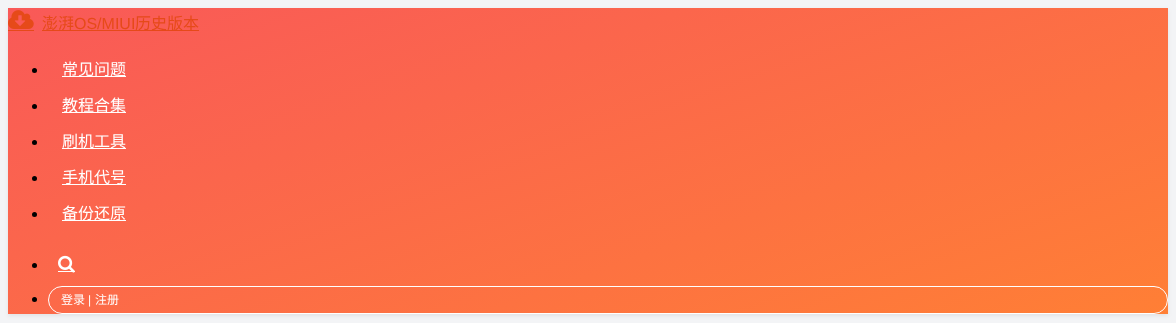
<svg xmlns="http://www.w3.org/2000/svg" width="1176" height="323">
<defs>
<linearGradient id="g1" gradientUnits="userSpaceOnUse" x1="705" y1="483" x2="471" y2="-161"><stop offset="0" stop-color="#ff7f35"/><stop offset="1" stop-color="#f95958"/></linearGradient>
</defs>
<rect width="100%" height="100%" fill="#f3f4f6"/>
<rect x="8" y="10" width="1160" height="306" fill="#00000012" filter="blur(2px)"/>
<rect x="8" y="8" width="1160" height="306" fill="url(#g1)"/>
<image x="8" y="10" width="26" height="19" href="media/1.png"/>
<rect x="42" y="30" width="157" height="1" fill="#e64a19"/>
<text x="42" y="29" style="font-family:Noto Sans CJK SC;font-size:16px;fill:#e64a19">澎湃</text>
<rect x="8" y="30" width="26" height="1" fill="#e64a19"/>
<text x="74" y="29" style="font-family:Liberation Sans;font-size:16px;fill:#e64a19">OS/MIUI</text>
<text x="135" y="29" style="font-family:Noto Sans CJK SC;font-size:16px;fill:#e64a19">历史版本</text>
<circle cx="34.5" cy="70.5" r="2.5" fill="#000"/>
<rect x="62" y="76" width="64" height="1" fill="#fff"/>
<text x="62" y="75" style="font-family:Noto Sans CJK SC;font-size:16px;fill:#fff">常见问题</text>
<circle cx="34.5" cy="106.5" r="2.5" fill="#000"/>
<rect x="62" y="112" width="64" height="1" fill="#fff"/>
<text x="62" y="111" style="font-family:Noto Sans CJK SC;font-size:16px;fill:#fff">教程合集</text>
<circle cx="34.5" cy="142.5" r="2.5" fill="#000"/>
<rect x="62" y="148" width="64" height="1" fill="#fff"/>
<text x="62" y="147" style="font-family:Noto Sans CJK SC;font-size:16px;fill:#fff">刷机工具</text>
<circle cx="34.5" cy="178.5" r="2.5" fill="#000"/>
<rect x="62" y="184" width="64" height="1" fill="#fff"/>
<text x="62" y="183" style="font-family:Noto Sans CJK SC;font-size:16px;fill:#fff">手机代号</text>
<circle cx="34.5" cy="214.5" r="2.5" fill="#000"/>
<rect x="62" y="220" width="64" height="1" fill="#fff"/>
<text x="62" y="219" style="font-family:Noto Sans CJK SC;font-size:16px;fill:#fff">备份还原</text>
<circle cx="34.5" cy="265.5" r="2.5" fill="#000"/>
<rect x="58" y="271" width="17" height="1" fill="#fff"/>
<image x="58" y="255" width="17" height="18" href="media/2.png"/>
<circle cx="34.5" cy="299.5" r="2.5" fill="#000"/>
<rect x="48.5" y="286.5" width="1119" height="27" rx="13.5" fill="none" stroke="#fff"/>
<text x="61" y="304" style="font-family:Noto Sans CJK SC;font-size:12px;fill:#fff">登录</text>
<text x="88" y="304" style="font-family:Liberation Sans;font-size:12px;fill:#fff">|</text>
<text x="95" y="304" style="font-family:Noto Sans CJK SC;font-size:12px;fill:#fff">注册</text>
</svg>
